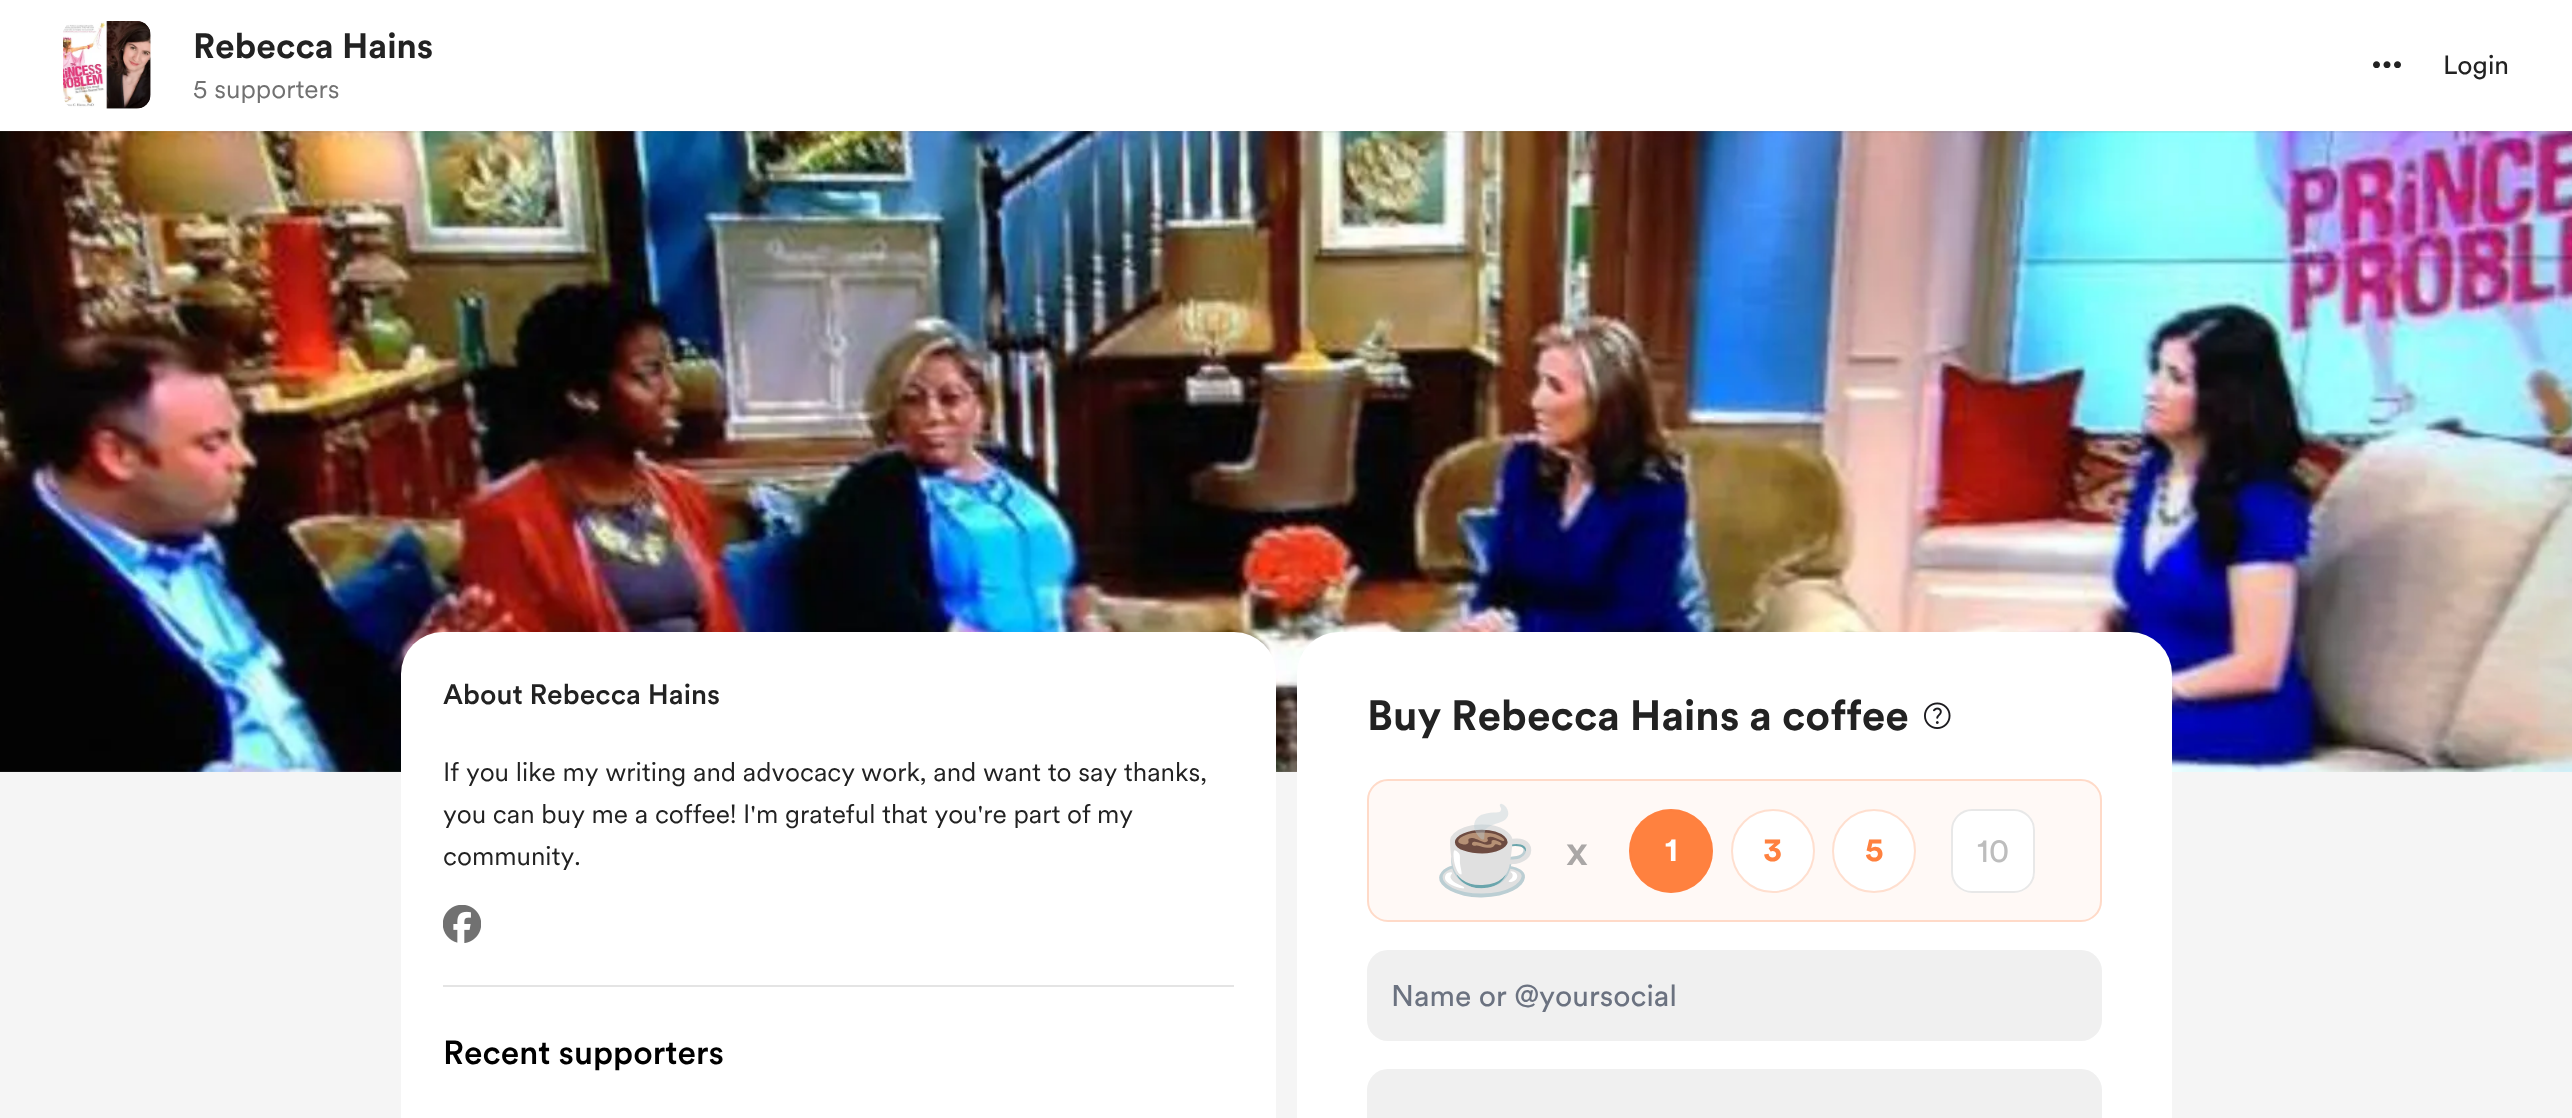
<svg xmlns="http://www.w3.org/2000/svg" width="2572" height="1118">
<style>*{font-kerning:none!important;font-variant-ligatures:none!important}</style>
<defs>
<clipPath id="clip1"><rect x="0" y="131" width="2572" height="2"/></clipPath>
</defs>
<rect width="100%" height="100%" fill="#fff"/>
<rect y="131" width="2572" height="987" fill="#f5f5f5"/>
<image x="0" y="131" width="2572" height="641" href="media/4.png"/>
<image x="0" y="131" width="2572" height="641" href="media/5.png"/>
<g clip-path="url(#clip1)">
<rect y="2" width="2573" height="131" fill="#0000000f" filter="blur(1px)"/>
</g>
<image x="63" y="21" width="88" height="88" href="media/1.png"/>
<image x="63" y="21" width="88" height="88" href="media/2.png"/>
<text x="193" y="58" style="font-family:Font;font-size:35px;font-weight:bold;fill:#222">Rebecca Hains</text>
<text x="193" y="98" style="font-family:'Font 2';font-size:26.25px;fill:#717171">5 supporters</text>
<image x="2373" y="61" width="28" height="7" href="media/3.png"/>
<text x="2443" y="74" style="font-family:Font;font-size:26.25px;fill:#222">Login</text>
<rect x="401" y="632" width="875" height="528" rx="42" fill="#fff"/>
<rect x="443" y="985" width="791" height="2" fill="#e4e4e4"/>
<text x="443" y="704" style="font-family:Font;font-size:28px;font-weight:500;fill:#222">About Rebecca Hains</text>
<text x="443" y="781" style="font-family:'Font 2';font-size:26.25px;fill:#222">If you like my writing and advocacy</text>
<text x="861" y="781" style="font-family:'Font 2';font-size:26.25px;fill:#222">work, and want to say thanks,</text>
<text x="443" y="823" style="font-family:'Font 2';font-size:26.25px;fill:#222">you can buy me a coffee! I'm grateful that you're part of</text>
<text x="1097" y="823" style="font-family:'Font 2';font-size:26.25px;fill:#222">my</text>
<text x="443" y="865" style="font-family:'Font 2';font-size:26.25px;fill:#222">community.</text>
<image x="443" y="905" width="38" height="38" href="media/6.png"/>
<text x="443" y="1064" style="font-family:Font;font-size:33.25px;font-weight:500;fill:#000">Recent supporters</text>
<rect x="1297" y="632" width="875" height="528" rx="42" fill="#fff"/>
<text x="1367" y="730" style="font-family:Font;font-size:42px;font-weight:bold;fill:#222">Buy Rebecca Hains a coffee</text>
<image x="1924" y="702" width="27" height="27" href="media/7.png"/>
<rect x="1367" y="779" width="735" height="143" rx="21" fill="#fff9f6"/>
<rect x="1368" y="780" width="733" height="141" rx="20" fill="none" stroke="#ff813f40" stroke-width="2"/>
<text x="1433" y="880" style="font-family:Noto Color Emoji;font-size:84px;fill:#000">☕</text>
<text x="1566" y="865" style="font-family:Font;font-size:42px;font-weight:500;fill:#aaa7a6">x</text>
<circle cx="1671" cy="851" r="42" fill="#ff813f"/>
<circle cx="1671" cy="851" r="41" fill="none" stroke="#ff813f40" stroke-width="2"/>
<text x="1665" y="861" style="font-family:Font;font-size:33.25px;font-weight:bold;fill:#fff">1</text>
<circle cx="1773" cy="851" r="42" fill="#fff"/>
<circle cx="1773" cy="851" r="41" fill="none" stroke="#ff813f40" stroke-width="2"/>
<text x="1763" y="861" style="font-family:Font;font-size:33.25px;font-weight:bold;fill:#ff813f">3</text>
<circle cx="1874" cy="851" r="42" fill="#fff"/>
<circle cx="1874" cy="851" r="41" fill="none" stroke="#ff813f40" stroke-width="2"/>
<text x="1865" y="861" style="font-family:Font;font-size:33.25px;font-weight:bold;fill:#ff813f">5</text>
<rect x="1951" y="809" width="84" height="84" rx="21" fill="#fff"/>
<rect x="1952" y="810" width="82" height="82" rx="20" fill="none" stroke="#2222221a" stroke-width="2"/>
<text x="1977" y="862" style="font-family:Font;font-size:33.25px;fill:#bdbdbd">10</text>
<rect x="1367" y="950" width="735" height="91" rx="21" fill="#f0f0f0"/>
<text x="1391" y="1006" style="font-family:Font;font-size:29.75px;fill:#6b7280">Name or @yoursocial</text>
<rect x="1367" y="1069" width="735" height="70" rx="21" fill="#f0f0f0"/>
</svg>
